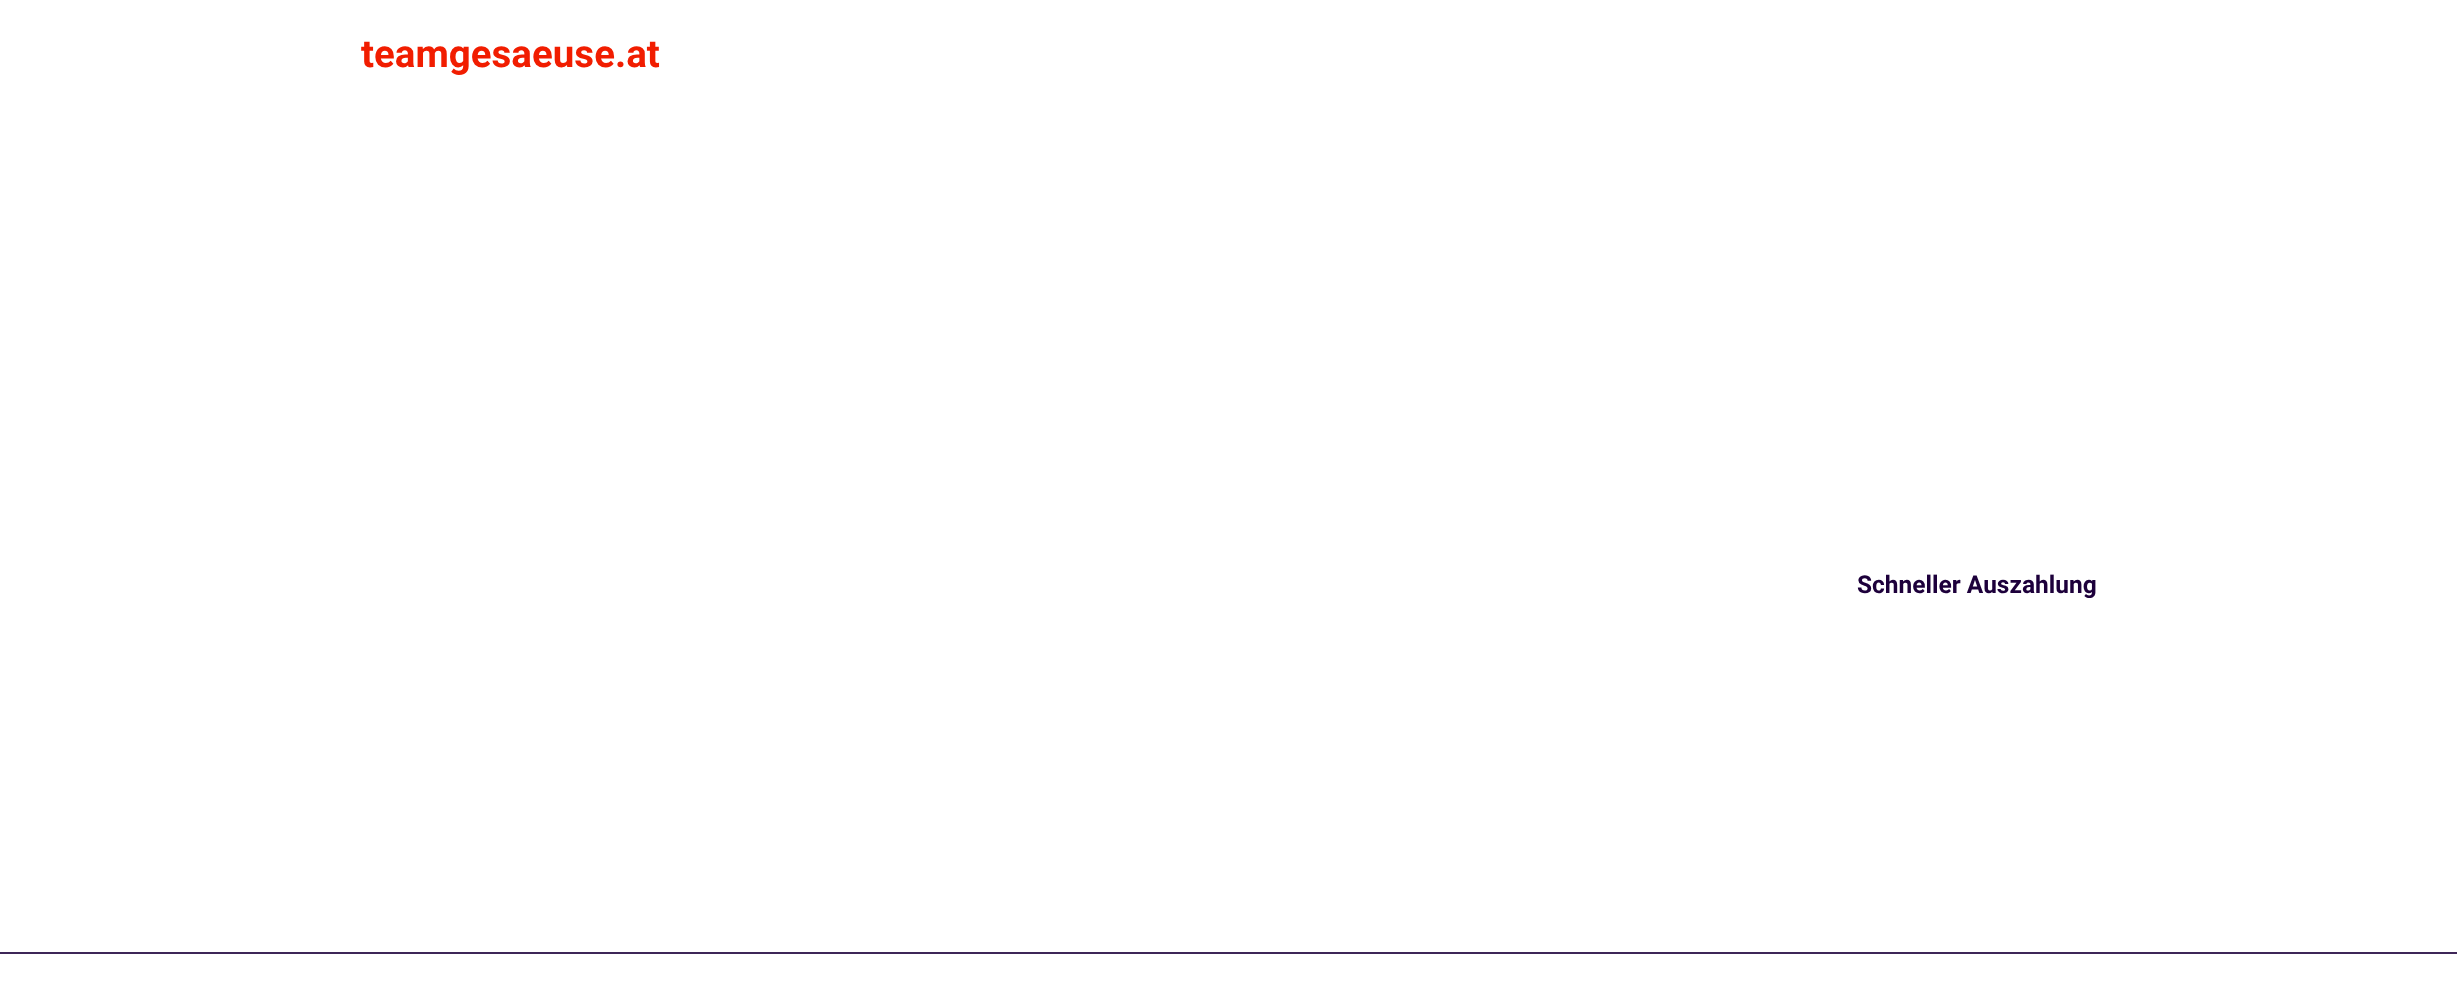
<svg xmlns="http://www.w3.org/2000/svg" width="2457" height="1002">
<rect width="100%" height="100%" fill="#fff"/>
<rect y="952" width="2457" height="2" fill="#3e2658"/>
<text x="361" y="67" style="font-family:Roboto;font-size:38.5px;font-weight:bold;fill:#f11d00">teamgesaeuse.at</text>
<text x="1857" y="593" style="font-family:Roboto;font-size:24.5px;font-weight:bold;fill:#1d003b">Schneller Auszahlung</text>
</svg>
